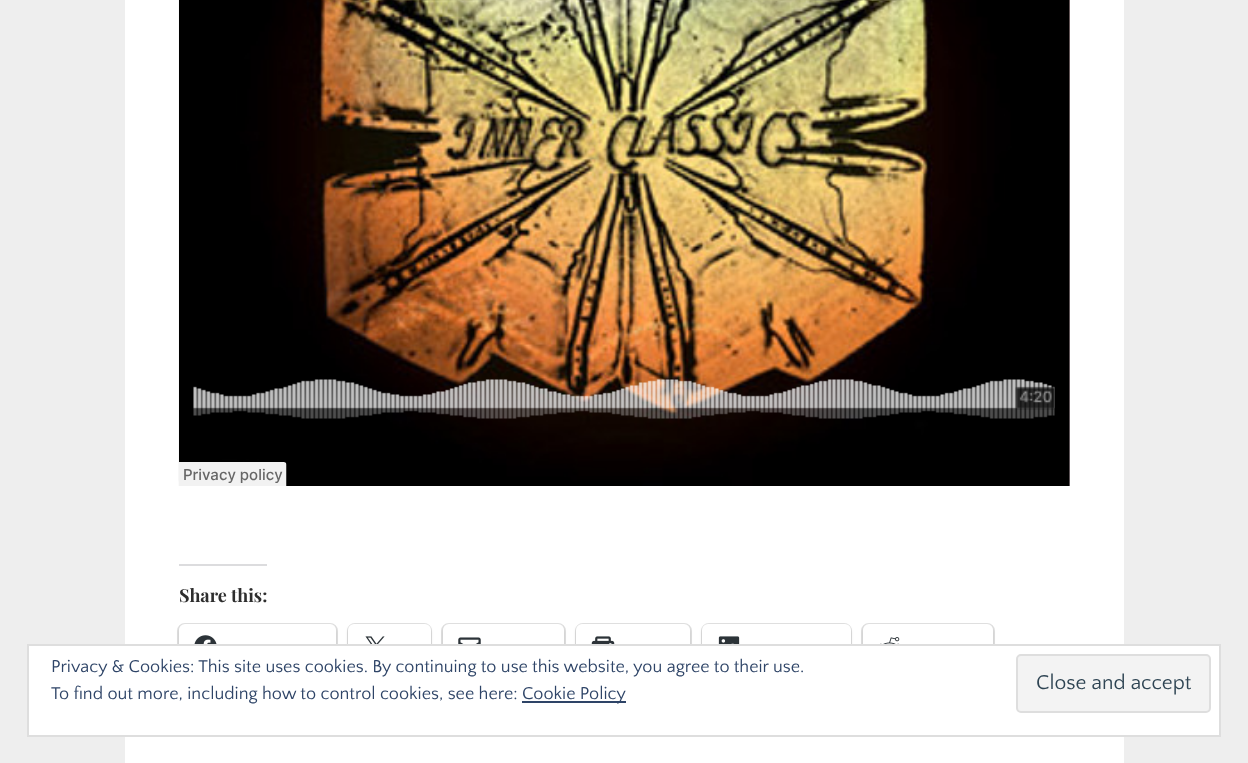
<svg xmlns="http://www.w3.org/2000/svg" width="1248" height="763">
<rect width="100%" height="100%" fill="#eee"/>
<rect x="125" width="999" height="763" fill="#fff"/>
<image x="178" y="0" width="892" height="486" href="media/1.png"/>
<rect x="179" y="564" width="88" height="2" fill="#dcdcde"/>
<text x="179" y="602" style="font-family:Playfair Display;font-size:18px;font-weight:bold;fill:#2e2e2e">Share this:</text>
<rect x="178" y="624" width="159" height="46" rx="7" fill="none" stroke="#e0e0e0" stroke-width="2"/>
<rect x="179" y="626" width="157" height="45" rx="6" fill="#0000001f" filter="blur(1.5px)"/>
<rect x="179" y="624" width="157" height="45" rx="6" fill="#fff"/>
<image x="194" y="635" width="23" height="9" href="media/2.png"/>
<rect x="348" y="624" width="83" height="46" rx="7" fill="none" stroke="#e0e0e0" stroke-width="2"/>
<rect x="348" y="626" width="83" height="45" rx="6" fill="#0000001f" filter="blur(1.5px)"/>
<rect x="348" y="624" width="83" height="45" rx="6" fill="#fff"/>
<image x="365" y="636" width="20" height="8" href="media/3.png"/>
<rect x="442" y="624" width="123" height="46" rx="7" fill="none" stroke="#e0e0e0" stroke-width="2"/>
<rect x="443" y="626" width="121" height="45" rx="6" fill="#0000001f" filter="blur(1.5px)"/>
<rect x="443" y="624" width="121" height="45" rx="6" fill="#fff"/>
<image x="458" y="637" width="23" height="7" href="media/4.png"/>
<rect x="576" y="624" width="115" height="46" rx="7" fill="none" stroke="#e0e0e0" stroke-width="2"/>
<rect x="576" y="626" width="114" height="45" rx="6" fill="#0000001f" filter="blur(1.5px)"/>
<rect x="576" y="624" width="114" height="45" rx="6" fill="#fff"/>
<image x="591" y="636" width="24" height="8" href="media/5.png"/>
<rect x="702" y="624" width="149" height="46" rx="7" fill="none" stroke="#e0e0e0" stroke-width="2"/>
<rect x="702" y="626" width="149" height="45" rx="6" fill="#0000001f" filter="blur(1.5px)"/>
<rect x="702" y="624" width="149" height="45" rx="6" fill="#fff"/>
<image x="718" y="636" width="22" height="8" href="media/6.png"/>
<rect x="862" y="624" width="132" height="46" rx="7" fill="none" stroke="#e0e0e0" stroke-width="2"/>
<rect x="863" y="626" width="130" height="45" rx="6" fill="#0000001f" filter="blur(1.5px)"/>
<rect x="863" y="624" width="130" height="45" rx="6" fill="#fff"/>
<image x="880" y="637" width="20" height="7" href="media/7.png"/>
<rect x="28" y="645" width="1192" height="91" fill="#fff" stroke="#dedede" stroke-width="2"/>
<text x="51" y="672" style="font-family:Quattrocento Sans;font-size:18px;fill:#2e4467">Privacy &amp; Cookies: This site uses cookies. By continuing to use this website, you agree to their use.</text>
<text x="51" y="699" style="font-family:Quattrocento Sans;font-size:18px;fill:#2e4467">To find out more, including how to control cookies, see here:</text>
<rect x="522" y="701" width="104" height="2" fill="#2e4467"/>
<text x="522" y="699" style="font-family:Quattrocento Sans;font-size:18px;fill:#2e4467">Cookie Policy</text>
<rect x="1017" y="655" width="193" height="57" rx="4" fill="#f3f3f3" stroke="#dedede" stroke-width="2"/>
<text x="1036" y="689" style="font-family:Quattrocento Sans;font-size:21px;fill:#2e4453">Close and accept</text>
</svg>
